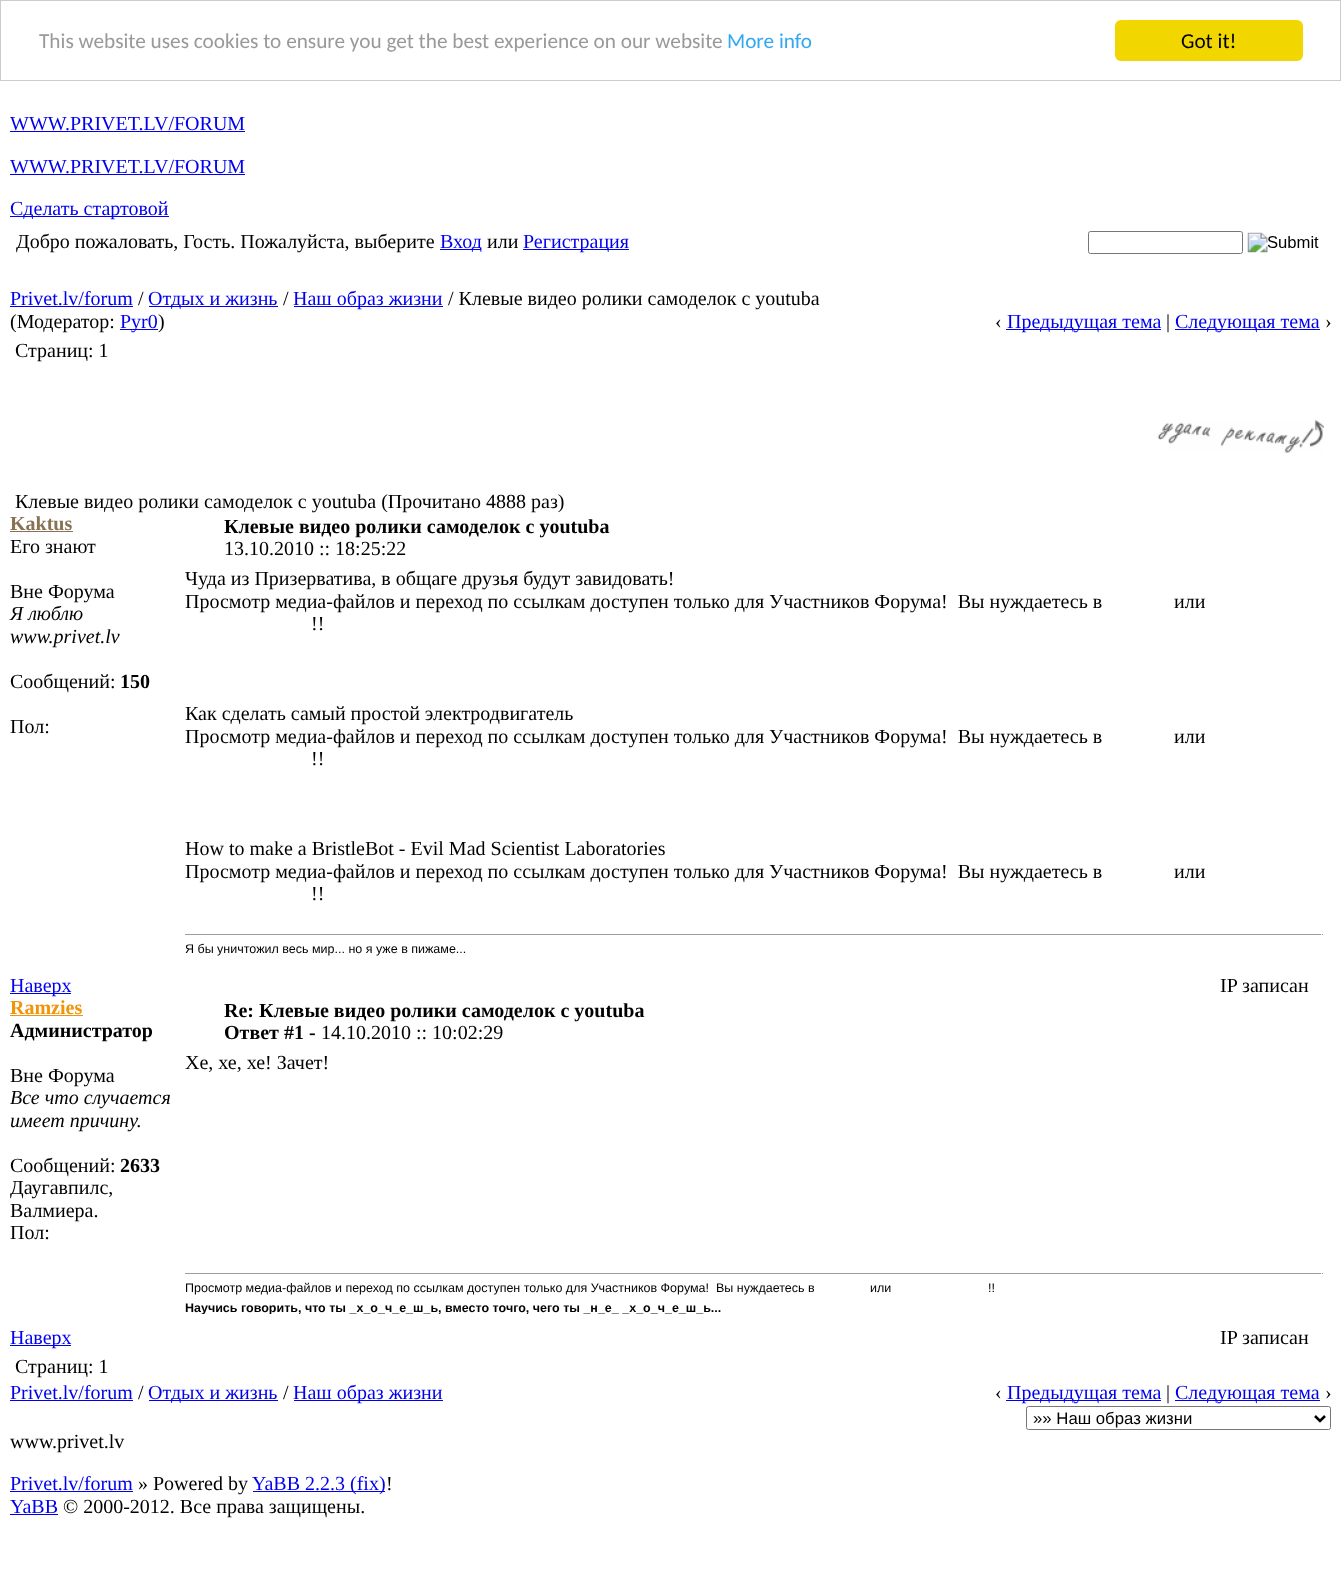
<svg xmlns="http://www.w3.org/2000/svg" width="1341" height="1587">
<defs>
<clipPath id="clip1"><rect x="185" y="1280" width="1124" height="34"/></clipPath>
</defs>
<rect width="100%" height="100%" fill="#fff"/>
<rect x="0.5" y="0.5" width="1340" height="80" fill="none" stroke="#ccc"/>
<text x="39" y="48" style="font-family:Carlito;font-size:21.25px;fill:#999">This website uses cookies to ensure you get the best experience on our website</text>
<text x="727" y="48" style="font-family:Carlito;font-size:21.25px;fill:#31a8f0">More info</text>
<rect x="1115" y="20" width="188" height="41" rx="6" fill="#f1d600"/>
<text x="1181" y="48" style="font-family:Carlito;font-size:21.25px;fill:#000">Got it!</text>
<text x="10" y="130" style="font-family:Liberation Serif;font-size:20px;fill:#00e">WWW</text>
<rect x="10" y="131" width="235" height="1" fill="#00e"/>
<text x="65" y="130" style="font-family:Liberation Serif;font-size:20px;fill:#00e">.PRIVET.L</text>
<text x="154" y="130" style="font-family:Liberation Serif;font-size:20px;fill:#00e">V/FORUM</text>
<text x="10" y="173" style="font-family:Liberation Serif;font-size:20px;fill:#00e">WWW</text>
<rect x="10" y="174" width="235" height="1" fill="#00e"/>
<text x="65" y="173" style="font-family:Liberation Serif;font-size:20px;fill:#00e">.PRIVET.L</text>
<text x="154" y="173" style="font-family:Liberation Serif;font-size:20px;fill:#00e">V/FORUM</text>
<rect x="10" y="216" width="159" height="1" fill="#00e"/>
<text x="10" y="215" style="font-family:Liberation Serif;font-size:20px;fill:#00e">Сделать стартовой</text>
<text x="16" y="248" style="font-family:Liberation Serif;font-size:20px;fill:#000">Добро пожаловать, Гость. Пожалуйста, выберите</text>
<rect x="440" y="249" width="41" height="1" fill="#00e"/>
<text x="440" y="248" style="font-family:Liberation Serif;font-size:20px;fill:#00e">Вход</text>
<text x="487" y="248" style="font-family:Liberation Serif;font-size:20px;fill:#000">или</text>
<rect x="523" y="249" width="106" height="1" fill="#00e"/>
<text x="523" y="248" style="font-family:Liberation Serif;font-size:20px;fill:#00e">Регистрация</text>
<rect x="1088.5" y="231.5" width="154" height="22" rx="2" fill="none" stroke="#767676"/>
<image x="1247" y="232" width="72" height="21" href="media/1.png"/>
<text x="10" y="305" style="font-family:Liberation Serif;font-size:20px;fill:#00e">Privet.lv/forum</text>
<rect x="10" y="306" width="123" height="1" fill="#00e"/>
<text x="138" y="305" style="font-family:Liberation Serif;font-size:20px;fill:#000">/</text>
<rect x="149" y="306" width="129" height="1" fill="#00e"/>
<text x="148" y="305" style="font-family:Liberation Serif;font-size:20px;fill:#00e">Отдых и жизнь</text>
<text x="283" y="305" style="font-family:Liberation Serif;font-size:20px;fill:#000">/</text>
<rect x="294" y="306" width="149" height="1" fill="#00e"/>
<text x="293" y="305" style="font-family:Liberation Serif;font-size:20px;fill:#00e">Наш образ жизни</text>
<text x="448" y="305" style="font-family:Liberation Serif;font-size:20px;fill:#000">/ Клевые видео ролики самоделок с youtuba</text>
<text x="10" y="328" style="font-family:Liberation Serif;font-size:20px;fill:#000">(Модератор:</text>
<rect x="120" y="329" width="38" height="1" fill="#00e"/>
<text x="120" y="328" style="font-family:Liberation Serif;font-size:20px;fill:#00e">Pyr0</text>
<text x="158" y="328" style="font-family:Liberation Serif;font-size:20px;fill:#000">)</text>
<text x="995" y="328" style="font-family:Liberation Serif;font-size:20px;fill:#000">‹</text>
<rect x="1006" y="329" width="155" height="1" fill="#00e"/>
<text x="1007" y="328" style="font-family:Liberation Serif;font-size:20px;fill:#00e">Предыдущая тема</text>
<text x="1166" y="328" style="font-family:Liberation Serif;font-size:20px;fill:#000">|</text>
<rect x="1175" y="329" width="145" height="1" fill="#00e"/>
<text x="1175" y="328" style="font-family:Liberation Serif;font-size:20px;fill:#00e">Следующая тема</text>
<text x="1325" y="328" style="font-family:Liberation Serif;font-size:20px;fill:#000">›</text>
<text x="15" y="357" style="font-family:Liberation Serif;font-size:20px;fill:#000">Страниц: 1</text>
<image x="1157" y="419" width="167" height="34" href="media/2.png"/>
<text x="15" y="508" style="font-family:Liberation Serif;font-size:20px;fill:#000">Клевые видео ролики самоделок с youtuba (Прочитано 4888 раз)</text>
<text x="10" y="530" style="font-family:Liberation Serif;font-size:20px;font-weight:bold;fill:#877354">Kaktus</text>
<rect x="10" y="531" width="63" height="1" fill="#877354"/>
<text x="10" y="553" style="font-family:Liberation Serif;font-size:20px;fill:#000">Его знают</text>
<text x="10" y="598" style="font-family:Liberation Serif;font-size:20px;fill:#000">Вне Форума</text>
<text x="10" y="620" style="font-family:Liberation Serif;font-size:20px;font-style:italic;fill:#000">Я люблю</text>
<text x="10" y="643" style="font-family:Liberation Serif;font-size:20px;font-style:italic;fill:#000">www.privet.lv</text>
<text x="10" y="688" style="font-family:Liberation Serif;font-size:20px;fill:#000">Сообщений:</text>
<text x="120" y="688" style="font-family:Liberation Serif;font-size:20px;font-weight:bold;fill:#000">150</text>
<text x="10" y="733" style="font-family:Liberation Serif;font-size:20px;fill:#000">Пол:</text>
<text x="224" y="533" style="font-family:Liberation Serif;font-size:20px;font-weight:bold;fill:#000">Клевые видео ролики самоделок с youtuba</text>
<text x="224" y="555" style="font-family:Liberation Serif;font-size:20px;fill:#000">13.10.2010 :: 18:25:22</text>
<text x="185" y="585" style="font-family:Liberation Serif;font-size:20px;fill:#000">Чуда из Призерватива, в общаге друзья будут завидовать!</text>
<text x="185" y="608" style="font-family:Liberation Serif;font-size:20px;fill:#000" xml:space="preserve">Просмотр медиа-файлов и переход по ссылкам доступен только для Участников Форума!  Вы нуждаетесь в</text>
<text x="1174" y="608" style="font-family:Liberation Serif;font-size:20px;fill:#000">или</text>
<text x="311" y="630" style="font-family:Liberation Serif;font-size:20px;fill:#000">!!</text>
<text x="185" y="720" style="font-family:Liberation Serif;font-size:20px;fill:#000">Как сделать самый простой электродвигатель</text>
<text x="185" y="743" style="font-family:Liberation Serif;font-size:20px;fill:#000" xml:space="preserve">Просмотр медиа-файлов и переход по ссылкам доступен только для Участников Форума!  Вы нуждаетесь в</text>
<text x="1174" y="743" style="font-family:Liberation Serif;font-size:20px;fill:#000">или</text>
<text x="311" y="765" style="font-family:Liberation Serif;font-size:20px;fill:#000">!!</text>
<text x="185" y="855" style="font-family:Liberation Serif;font-size:20px;fill:#000">How to make a BristleBot - Evil Mad Scientist Laboratories</text>
<text x="185" y="878" style="font-family:Liberation Serif;font-size:20px;fill:#000" xml:space="preserve">Просмотр медиа-файлов и переход по ссылкам доступен только для Участников Форума!  Вы нуждаетесь в</text>
<text x="1174" y="878" style="font-family:Liberation Serif;font-size:20px;fill:#000">или</text>
<text x="311" y="900" style="font-family:Liberation Serif;font-size:20px;fill:#000">!!</text>
<rect x="10" y="993" width="61" height="1" fill="#00e"/>
<text x="10" y="992" style="font-family:Liberation Serif;font-size:20px;fill:#00e">Наверх</text>
<rect x="185" y="934" width="1138" height="1" fill="#9f9f9f"/>
<rect x="1321" y="934" width="1" height="1" fill="#eee"/>
<text x="185" y="953" style="font-family:Liberation Sans;font-size:12.5px;fill:#000">Я бы уничтожил весь мир... но я уже в пижаме...</text>
<text x="1220" y="992" style="font-family:Liberation Serif;font-size:20px;fill:#000">IP записан</text>
<text x="10" y="1014" style="font-family:Liberation Serif;font-size:20px;font-weight:bold;fill:#f0940a">Ramzies</text>
<rect x="10" y="1015" width="73" height="1" fill="#f0940a"/>
<text x="10" y="1037" style="font-family:Liberation Serif;font-size:20px;font-weight:bold;fill:#000">Администратор</text>
<text x="10" y="1082" style="font-family:Liberation Serif;font-size:20px;fill:#000">Вне Форума</text>
<text x="10" y="1104" style="font-family:Liberation Serif;font-size:20px;font-style:italic;fill:#000">Все что случается</text>
<text x="10" y="1127" style="font-family:Liberation Serif;font-size:20px;font-style:italic;fill:#000">имеет причину.</text>
<text x="10" y="1172" style="font-family:Liberation Serif;font-size:20px;fill:#000">Сообщений:</text>
<text x="120" y="1172" style="font-family:Liberation Serif;font-size:20px;font-weight:bold;fill:#000">2633</text>
<text x="10" y="1194" style="font-family:Liberation Serif;font-size:20px;fill:#000">Даугавпилс,</text>
<text x="10" y="1217" style="font-family:Liberation Serif;font-size:20px;fill:#000">Валмиера.</text>
<text x="10" y="1239" style="font-family:Liberation Serif;font-size:20px;fill:#000">Пол:</text>
<text x="224" y="1017" style="font-family:Liberation Serif;font-size:20px;font-weight:bold;fill:#000">Re: Клевые видео ролики самоделок с youtuba</text>
<text x="224" y="1039" style="font-family:Liberation Serif;font-size:20px;font-weight:bold;fill:#000">Ответ #1 -</text>
<text x="321" y="1039" style="font-family:Liberation Serif;font-size:20px;fill:#000">14.10.2010 :: 10:02:29</text>
<text x="185" y="1069" style="font-family:Liberation Serif;font-size:20px;fill:#000">Хе, хе, хе! Зачет!</text>
<rect x="10" y="1345" width="61" height="1" fill="#00e"/>
<text x="10" y="1344" style="font-family:Liberation Serif;font-size:20px;fill:#00e">Наверх</text>
<rect x="185" y="1273" width="1138" height="1" fill="#9f9f9f"/>
<rect x="1321" y="1273" width="1" height="1" fill="#eee"/>
<text x="185" y="1292" style="font-family:Liberation Sans;font-size:12.5px;fill:#000" xml:space="preserve">Просмотр медиа-файлов и переход по ссылкам доступен только для Участников Форума!  Вы нуждаетесь в</text>
<text x="870" y="1292" style="font-family:Liberation Sans;font-size:12.5px;fill:#000">или</text>
<text x="988" y="1292" style="font-family:Liberation Sans;font-size:12.5px;fill:#000">!!</text>
<g clip-path="url(#clip1)">
<text x="185" y="1312" style="font-family:Liberation Sans;font-size:12.5px;font-weight:bold;fill:#000">Научись говорить, что ты _х_о_ч_е_ш_ь, вместо точго, чего ты _н_е_ _х_о_ч_е_ш_ь...</text>
</g>
<text x="1220" y="1344" style="font-family:Liberation Serif;font-size:20px;fill:#000">IP записан</text>
<text x="15" y="1373" style="font-family:Liberation Serif;font-size:20px;fill:#000">Страниц: 1</text>
<text x="10" y="1399" style="font-family:Liberation Serif;font-size:20px;fill:#00e">Privet.lv/forum</text>
<rect x="10" y="1400" width="123" height="1" fill="#00e"/>
<text x="138" y="1399" style="font-family:Liberation Serif;font-size:20px;fill:#000">/</text>
<rect x="149" y="1400" width="129" height="1" fill="#00e"/>
<text x="148" y="1399" style="font-family:Liberation Serif;font-size:20px;fill:#00e">Отдых и жизнь</text>
<text x="283" y="1399" style="font-family:Liberation Serif;font-size:20px;fill:#000">/</text>
<rect x="294" y="1400" width="149" height="1" fill="#00e"/>
<text x="293" y="1399" style="font-family:Liberation Serif;font-size:20px;fill:#00e">Наш образ жизни</text>
<text x="995" y="1399" style="font-family:Liberation Serif;font-size:20px;fill:#000">‹</text>
<rect x="1006" y="1400" width="155" height="1" fill="#00e"/>
<text x="1007" y="1399" style="font-family:Liberation Serif;font-size:20px;fill:#00e">Предыдущая тема</text>
<text x="1166" y="1399" style="font-family:Liberation Serif;font-size:20px;fill:#000">|</text>
<rect x="1175" y="1400" width="145" height="1" fill="#00e"/>
<text x="1175" y="1399" style="font-family:Liberation Serif;font-size:20px;fill:#00e">Следующая тема</text>
<text x="1325" y="1399" style="font-family:Liberation Serif;font-size:20px;fill:#000">›</text>
<rect x="1026.5" y="1406.5" width="304" height="23" rx="2" fill="none" stroke="#767676"/>
<path d="M1315 1416l5 5l5-5" fill="none" stroke="#000" stroke-width="2.5"/>
<text x="1033" y="1424" style="font-family:Liberation Sans;font-size:16.75px;fill:#000">»» Наш образ жизни</text>
<text x="10" y="1448" style="font-family:Liberation Serif;font-size:20px;fill:#000">www.privet.lv</text>
<text x="10" y="1490" style="font-family:Liberation Serif;font-size:20px;fill:#00e">Privet.lv/forum</text>
<rect x="10" y="1491" width="123" height="1" fill="#00e"/>
<text x="138" y="1490" style="font-family:Liberation Serif;font-size:20px;fill:#000">» Powered by</text>
<rect x="253" y="1491" width="132" height="1" fill="#00e"/>
<text x="252" y="1490" style="font-family:Liberation Serif;font-size:20px;fill:#00e">YaBB 2.2.3 (fix)</text>
<text x="386" y="1490" style="font-family:Liberation Serif;font-size:20px;fill:#000">!</text>
<text x="10" y="1513" style="font-family:Liberation Serif;font-size:20px;fill:#00e">YaBB</text>
<rect x="10" y="1514" width="48" height="1" fill="#00e"/>
<text x="63" y="1513" style="font-family:Liberation Serif;font-size:20px;fill:#000">© 2000-2012. Все права защищены.</text>
</svg>
